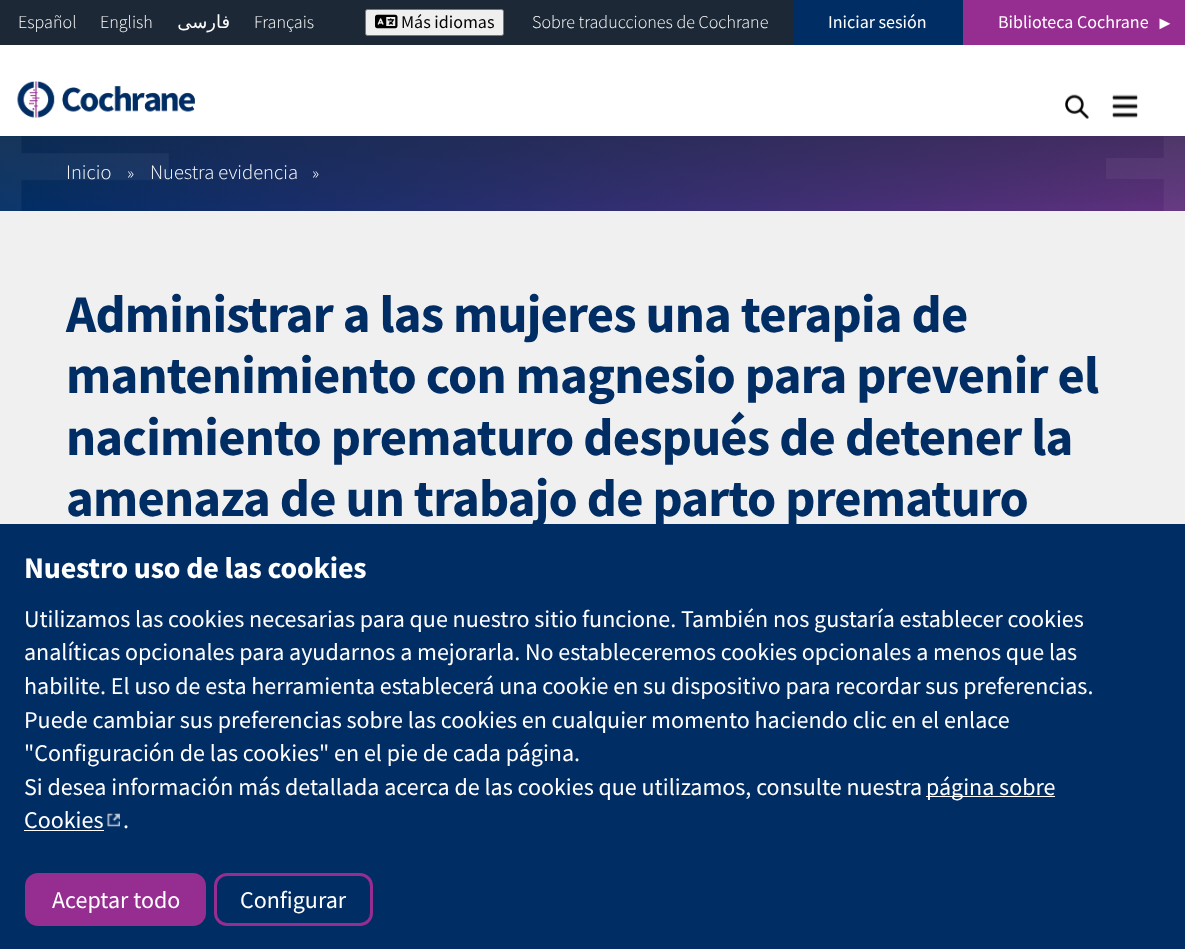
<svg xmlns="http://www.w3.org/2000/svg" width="1185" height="949">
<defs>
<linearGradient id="g1" gradientUnits="userSpaceOnUse" x1="0" y1="174" x2="1185" y2="174"><stop offset="0" stop-color="#002d64"/><stop offset="1" stop-color="#5f307d"/></linearGradient>
<linearGradient id="g2" gradientUnits="userSpaceOnUse" x1="593" y1="16" x2="593" y2="211"><stop offset="0" stop-color="#1c2836"/><stop offset="1" stop-color="#1c2836" stop-opacity="0"/></linearGradient>
</defs>
<rect width="100%" height="100%" fill="#f0f0f0"/>
<rect width="793" height="45" fill="#1c2836"/>
<rect y="45" width="1185" height="91" fill="#fff"/>
<text x="18" y="28" style="font-family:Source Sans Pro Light;font-size:18px;font-weight:300;fill:#fff">Español</text>
<text x="100" y="28" style="font-family:Source Sans Pro Light;font-size:18px;font-weight:300;fill:#fff">English</text>
<text x="230" y="28" style="font-family:DejaVu Sans;font-size:18px;direction:rtl;fill:#fff">فارسی</text>
<text x="254" y="28" style="font-family:Source Sans Pro Light;font-size:18px;font-weight:300;fill:#fff">Français</text>
<rect x="365.5" y="9.5" width="138" height="26" rx="2" fill="#efefef" stroke="#767676"/>
<image x="375" y="14" width="23" height="15" href="media/1.png"/>
<text x="401" y="28" style="font-family:Source Sans Pro;font-size:18px;fill:#000">Más idiomas</text>
<text x="532" y="28" style="font-family:Source Sans Pro Light;font-size:18px;font-weight:300;fill:#fff">Sobre traducciones de Cochrane</text>
<rect x="793" width="170" height="45" fill="#002d64"/>
<text x="828" y="28" style="font-family:Source Sans Pro;font-size:18px;fill:#fff">Iniciar sesión</text>
<rect x="963" width="222" height="45" fill="#962d91"/>
<text x="998" y="28" style="font-family:Source Sans Pro;font-size:18px;fill:#fff">Biblioteca Cochrane</text>
<text x="1156" y="29" style="font-family:Liberation Sans;font-size:18px;fill:#fff">►</text>
<image x="17" y="81" width="178" height="37" href="media/2.png"/>
<image x="1065" y="94" width="24" height="25" href="media/3.png"/>
<image x="1112" y="94" width="26" height="24" href="media/4.png"/>
<rect y="136" width="1185" height="75" fill="url(#g1)"/>
<rect y="136" width="1185" height="68" fill="url(#g2)"/>
<image x="0" y="136" width="169" height="75" href="media/5.png"/>
<image x="1106" y="136" width="79" height="75" href="media/6.png"/>
<text x="66" y="179" style="font-family:Source Sans Pro Light;font-size:20.5px;font-weight:300;fill:#fff">Inicio</text>
<text x="127" y="179" style="font-family:Source Sans Pro Light;font-size:18px;font-weight:300;fill:#fff">»</text>
<text x="150" y="179" style="font-family:Source Sans Pro Light;font-size:20.5px;font-weight:300;fill:#fff">Nuestra evidencia</text>
<text x="312" y="179" style="font-family:Source Sans Pro Light;font-size:18px;font-weight:300;fill:#fff">»</text>
<text x="66" y="332" style="font-family:Source Sans Pro;font-size:52.75px;font-weight:bold;letter-spacing:-0.8px;fill:#002d64">Administrar a las mujeres una terapia de</text>
<text x="66" y="393" style="font-family:Source Sans Pro;font-size:52.75px;font-weight:bold;letter-spacing:-0.8px;fill:#002d64">mantenimiento con magnesio para prevenir el</text>
<text x="66" y="455" style="font-family:Source Sans Pro;font-size:52.75px;font-weight:bold;letter-spacing:-0.8px;fill:#002d64">nacimiento prematuro después de detener la</text>
<text x="66" y="516" style="font-family:Source Sans Pro;font-size:52.75px;font-weight:bold;letter-spacing:-0.8px;fill:#002d64">amenaza de un trabajo de parto prematuro</text>
<rect y="524" width="1185" height="425" fill="#002d64"/>
<text x="24" y="578" style="font-family:Source Sans Pro;font-size:30px;font-weight:bold;letter-spacing:-0.15px;fill:#fff">Nuestro uso de las cookies</text>
<text x="24" y="627" style="font-family:Source Sans Pro;font-size:24px;fill:#fff">Utilizamos las cookies necesarias para que nuestro sitio funcione. También nos gustaría establecer cookies</text>
<text x="24" y="660" style="font-family:Source Sans Pro;font-size:24px;fill:#fff">analíticas opcionales para ayudarnos a mejorarla. No estableceremos cookies opcionales a menos que las</text>
<text x="24" y="694" style="font-family:Source Sans Pro;font-size:24px;fill:#fff">habilite. El uso de esta herramienta establecerá una cookie en su dispositivo para recordar sus preferencias.</text>
<text x="24" y="728" style="font-family:Source Sans Pro;font-size:24px;fill:#fff">Puede cambiar sus preferencias sobre las cookies en cualquier momento haciendo clic en el enlace</text>
<text x="24" y="761" style="font-family:Source Sans Pro;font-size:24px;fill:#fff">"Configuración de las cookies" en el pie de cada página.</text>
<text x="24" y="795" style="font-family:Source Sans Pro;font-size:24px;fill:#fff">Si desea información más detallada acerca de las cookies que utilizamos, consulte nuestra</text>
<rect x="926" y="796" width="129" height="1" fill="#fff"/>
<text x="926" y="795" style="font-family:Source Sans Pro;font-size:24px;fill:#fff">página sobre</text>
<text x="24" y="828" style="font-family:Source Sans Pro;font-size:24px;fill:#fff">Cookies</text>
<rect x="24" y="830" width="80" height="1" fill="#fff"/>
<image x="107" y="813" width="13" height="14" href="media/7.png"/>
<text x="123" y="828" style="font-family:Source Sans Pro;font-size:24px;fill:#fff">.</text>
<rect x="26.5" y="874.5" width="178" height="50" rx="11.5" fill="#962d91" stroke="#962d91" stroke-width="3"/>
<text x="52" y="908" style="font-family:Source Sans Pro;font-size:24px;fill:#fff">Aceptar todo</text>
<rect x="215.5" y="874.5" width="156" height="50" rx="11.5" fill="none" stroke="#962d91" stroke-width="3"/>
<text x="240" y="908" style="font-family:Source Sans Pro;font-size:24px;fill:#fff">Configurar</text>
</svg>
